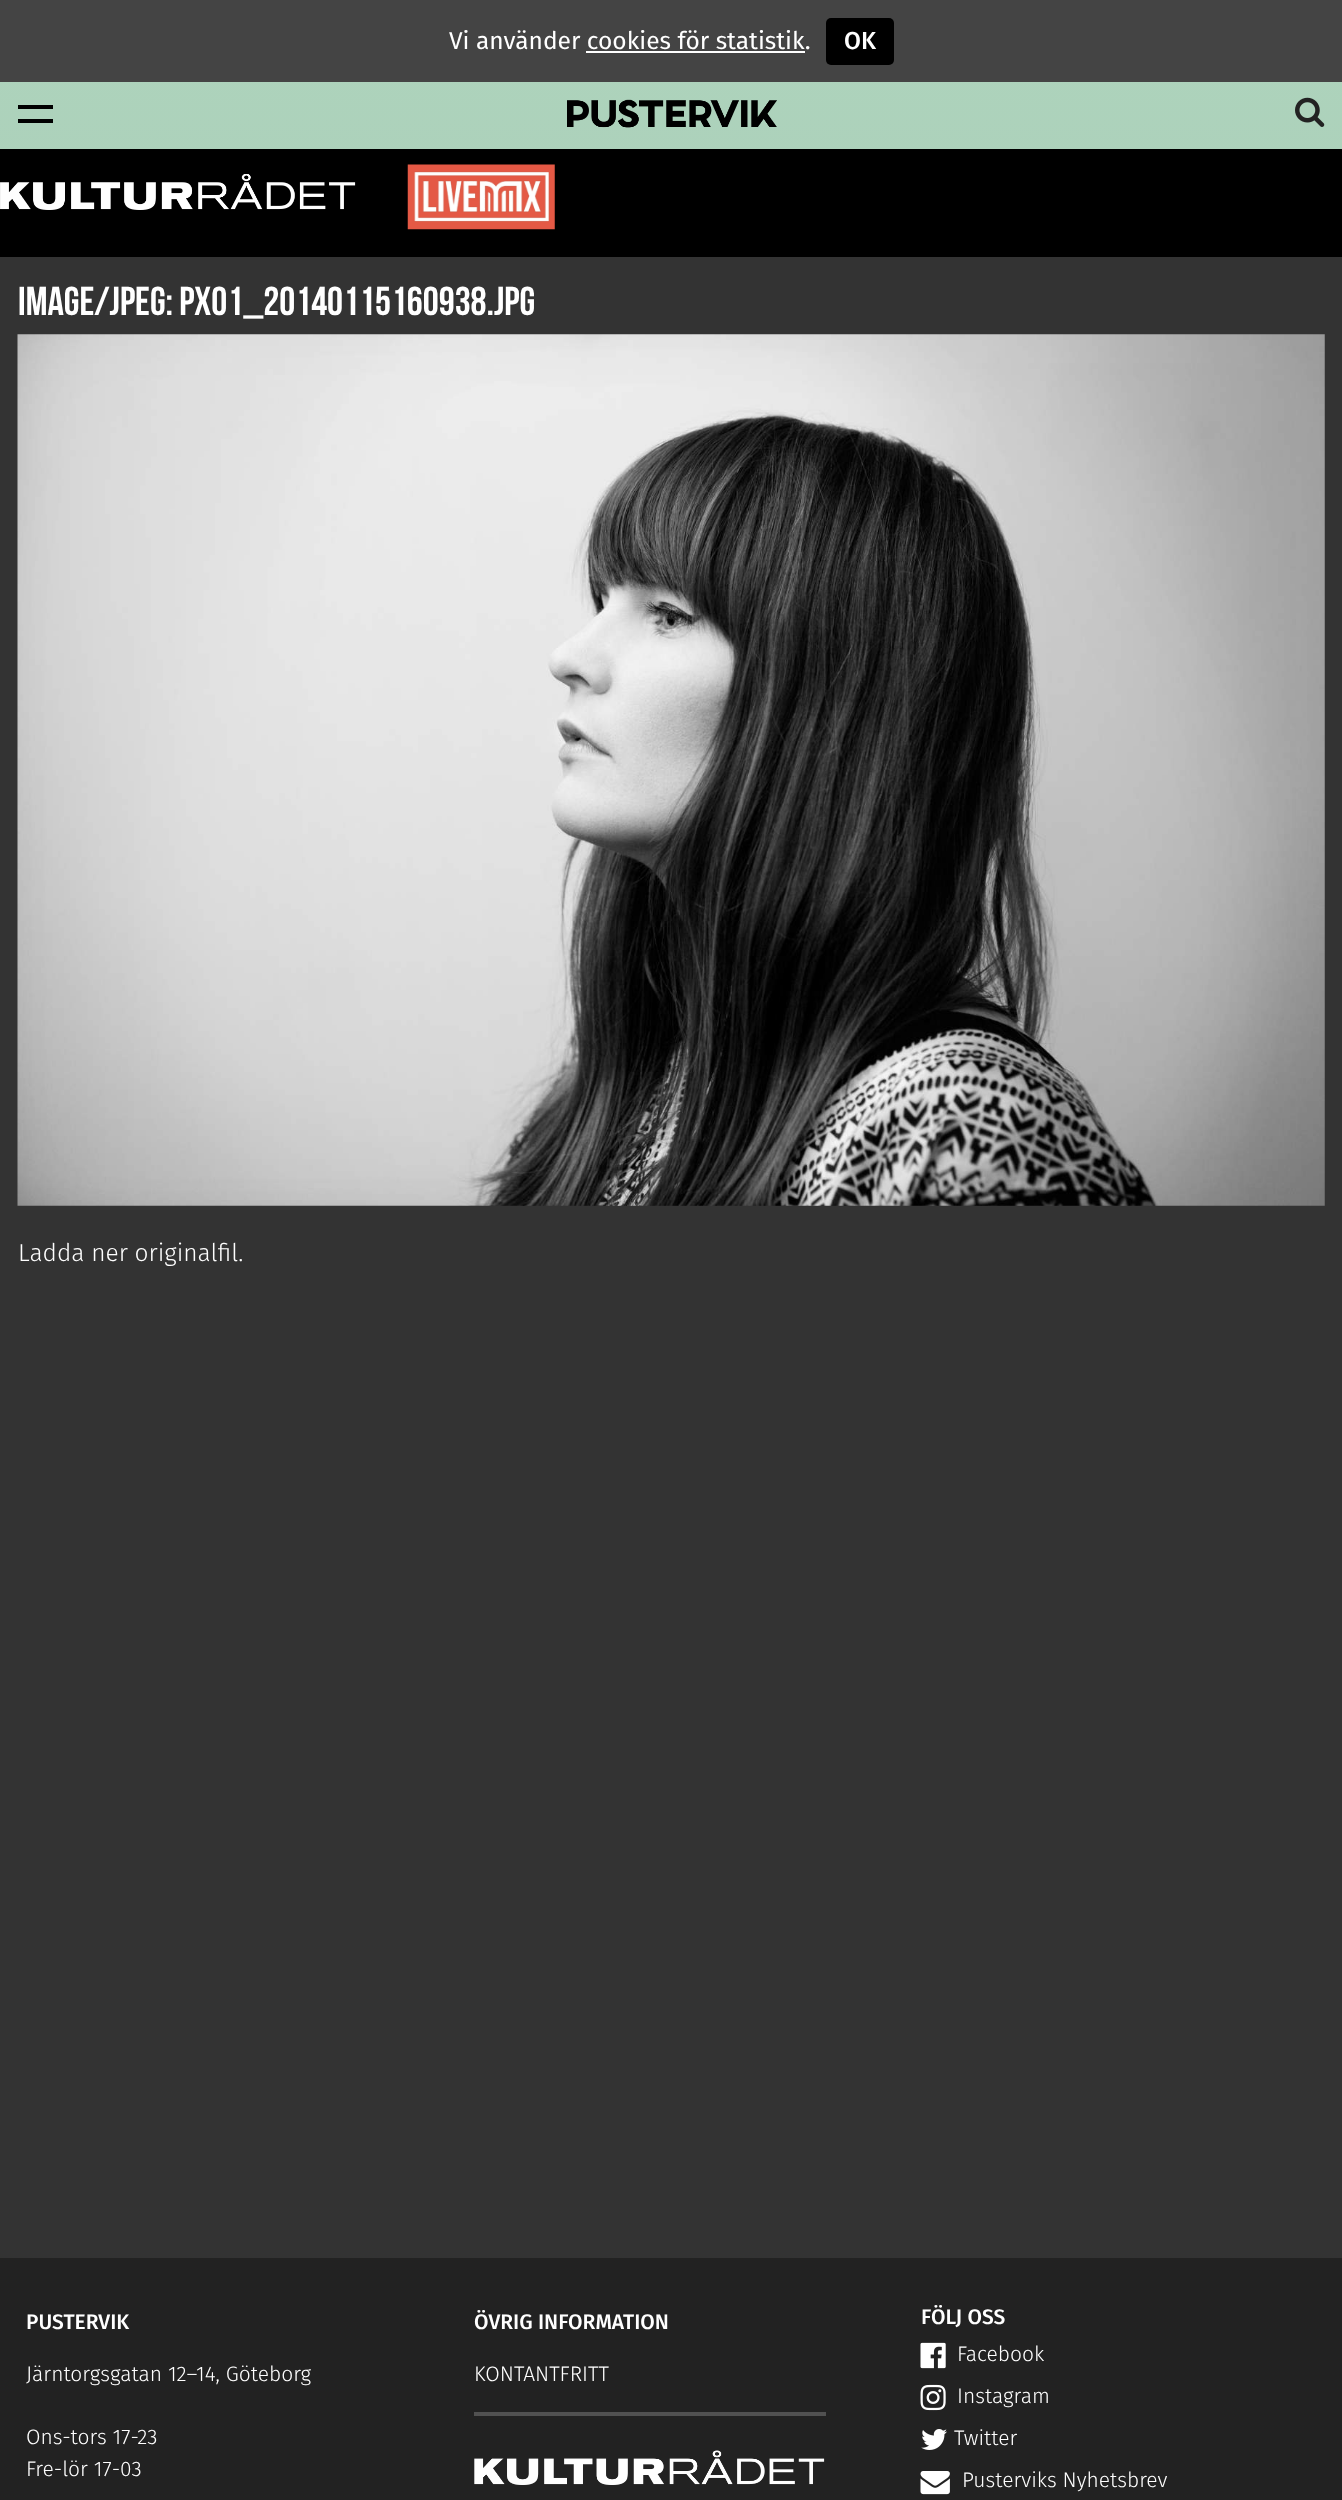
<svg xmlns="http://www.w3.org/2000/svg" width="1342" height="2500">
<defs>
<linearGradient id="g1" gradientUnits="userSpaceOnUse" x1="671" y1="0" x2="671" y2="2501"><stop offset="0" stop-color="#aed4bc"/><stop offset="1" stop-color="#96aaac"/></linearGradient>
</defs>
<rect width="100%" height="100%" fill="#fff"/>
<rect y="82" width="1342" height="67" fill="url(#g1)"/>
<rect width="1342" height="82" fill="#444"/>
<text x="449" y="49" style="font-family:Fira Sans;font-size:24.5px;fill:#fff">Vi använder cookies för statistik.</text>
<rect x="826" y="18" width="68" height="47" rx="5" fill="#000"/>
<text x="844" y="49" style="font-family:Fira Sans;font-size:24.5px;font-weight:500;fill:#fff">OK</text>
<rect x="586" y="51" width="219" height="2" fill="#fff"/>
<rect y="149" width="1342" height="108" fill="#000"/>
<rect x="18" y="105" width="35" height="4" fill="#000"/>
<rect x="18" y="119" width="35" height="4" fill="#000"/>
<image x="567" y="99" width="210" height="29" href="media/1.png"/>
<image x="1295" y="97" width="30" height="30" href="media/2.png"/>
<image x="0" y="174" width="356" height="36" href="media/3.png"/>
<image x="407" y="164" width="148" height="66" href="media/4.png"/>
<rect y="257" width="1342" height="2001" fill="#333"/>
<text x="18" y="315" style="font-family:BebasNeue;font-size:40.25px;fill:#fff">image/jpeg: PX01_20140115160938.jpg</text>
<image x="17" y="334" width="1308" height="872" href="media/5.png"/>
<text x="18" y="1261" style="font-family:Fira Sans;font-size:24.5px;font-weight:300;fill:#fff">Ladda ner originalfil.</text>
<rect y="2258" width="1342" height="242" fill="#222"/>
<text x="26" y="2329" style="font-family:Fira Sans;font-size:21px;font-weight:500;fill:#fff">PUSTERVIK</text>
<text x="26" y="2381" style="font-family:Fira Sans;font-size:21px;font-weight:300;fill:#fff">Järntorgsgatan 12–14, Göteborg</text>
<text x="26" y="2444" style="font-family:Fira Sans;font-size:21px;font-weight:300;fill:#fff">Ons-tors 17-23</text>
<text x="26" y="2476" style="font-family:Fira Sans;font-size:21px;font-weight:300;fill:#fff">Fre-lör 17-03</text>
<text x="474" y="2329" style="font-family:Fira Sans;font-size:21px;font-weight:500;fill:#fff">ÖVRIG INFORMATION</text>
<text x="474" y="2381" style="font-family:Fira Sans;font-size:21px;font-weight:300;fill:#fff">KONTANTFRITT</text>
<rect x="474" y="2412" width="352" height="4" fill="#515151"/>
<image x="474" y="2450" width="351" height="35" href="media/6.png"/>
<text x="921" y="2324" style="font-family:Fira Sans;font-size:21px;font-weight:500;fill:#fff">FÖLJ OSS</text>
<image x="920" y="2342" width="26" height="27" href="media/7.png"/>
<text x="957" y="2361" style="font-family:Fira Sans;font-size:21px;font-weight:300;fill:#fff">Facebook</text>
<image x="920" y="2384" width="26" height="27" href="media/8.png"/>
<text x="957" y="2403" style="font-family:Fira Sans;font-size:21px;font-weight:300;fill:#fff">Instagram</text>
<image x="921" y="2429" width="26" height="21" href="media/9.png"/>
<text x="954" y="2445" style="font-family:Fira Sans;font-size:21px;font-weight:300;fill:#fff">Twitter</text>
<image x="920" y="2471" width="30" height="24" href="media/10.png"/>
<text x="962" y="2487" style="font-family:Fira Sans;font-size:21px;font-weight:300;fill:#fff">Pusterviks Nyhetsbrev</text>
</svg>
